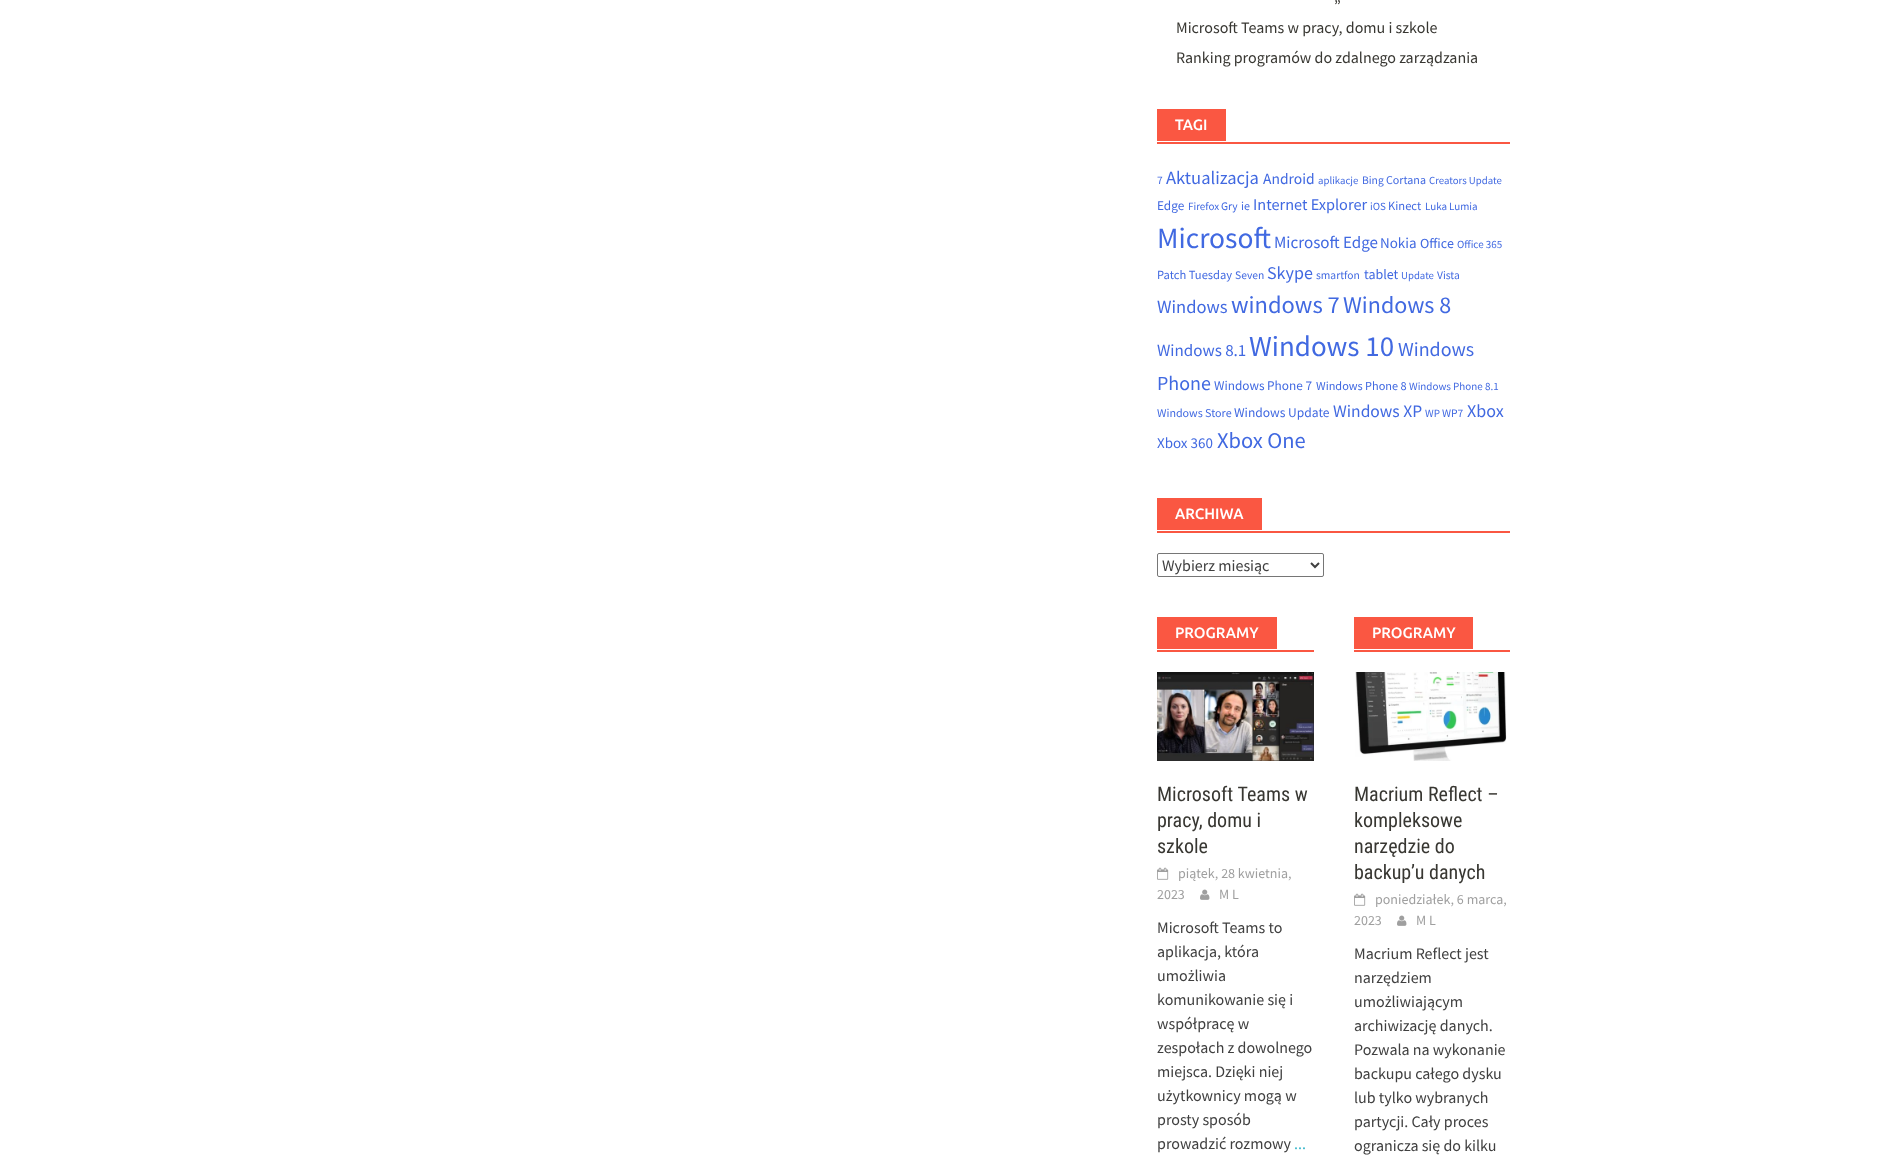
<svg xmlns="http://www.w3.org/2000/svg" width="1881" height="1164">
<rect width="100%" height="100%" fill="#fff"/>
<text x="1334" y="2" style="font-family:Source Sans Pro;font-size:16px;fill:#383732">„</text>
<text x="1176" y="33" style="font-family:Source Sans Pro;font-size:16px;fill:#383732">Microsoft Teams w pracy, domu i szkole</text>
<text x="1176" y="63" style="font-family:Source Sans Pro;font-size:16px;fill:#383732">Ranking programów do zdalnego zarządzania</text>
<rect x="1157" y="142" width="353" height="2" fill="#fa5742"/>
<rect x="1157" y="109" width="69" height="32" fill="#fa5742"/>
<text x="1175" y="130" style="font-family:Ubuntu;font-size:15px;font-weight:500;fill:#fff">TAGI</text>
<text x="1157" y="184" style="font-family:Source Sans Pro;font-size:11.5px;fill:#4169e1">7</text>
<text x="1166" y="184" style="font-family:Source Sans Pro;font-size:18.5px;fill:#4169e1">Aktualizacja</text>
<text x="1263" y="184" style="font-family:Source Sans Pro;font-size:15.5px;fill:#4169e1">Android</text>
<text x="1318" y="184" style="font-family:Source Sans Pro;font-size:10.75px;fill:#4169e1">aplikacje</text>
<text x="1362" y="184" style="font-family:Source Sans Pro;font-size:11.5px;fill:#4169e1">Bing</text>
<text x="1386" y="184" style="font-family:Source Sans Pro;font-size:12px;fill:#4169e1">Cortana</text>
<text x="1429" y="184" style="font-family:Source Sans Pro;font-size:10.75px;fill:#4169e1">Creators Update</text>
<text x="1157" y="210" style="font-family:Source Sans Pro;font-size:13.25px;fill:#4169e1">Edge</text>
<text x="1188" y="210" style="font-family:Source Sans Pro;font-size:11px;fill:#4169e1">Firefox</text>
<text x="1221" y="210" style="font-family:Source Sans Pro;font-size:11.5px;fill:#4169e1">Gry</text>
<text x="1241" y="210" style="font-family:Source Sans Pro;font-size:12px;fill:#4169e1">ie</text>
<text x="1253" y="210" style="font-family:Source Sans Pro;font-size:16.25px;fill:#4169e1">Internet Explorer</text>
<text x="1370" y="210" style="font-family:Source Sans Pro;font-size:11px;fill:#4169e1">iOS</text>
<text x="1388" y="210" style="font-family:Source Sans Pro;font-size:12.5px;fill:#4169e1">Kinect</text>
<text x="1425" y="210" style="font-family:Source Sans Pro;font-size:11px;fill:#4169e1">Luka</text>
<text x="1449" y="210" style="font-family:Source Sans Pro;font-size:11px;fill:#4169e1">Lumia</text>
<text x="1157" y="248" style="font-family:Source Sans Pro;font-size:29.5px;fill:#4169e1">Microsoft</text>
<text x="1274" y="248" style="font-family:Source Sans Pro;font-size:17px;fill:#4169e1">Microsoft Edge</text>
<text x="1380" y="248" style="font-family:Source Sans Pro;font-size:15px;fill:#4169e1">Nokia</text>
<text x="1420" y="248" style="font-family:Source Sans Pro;font-size:14px;fill:#4169e1">Office</text>
<text x="1457" y="248" style="font-family:Source Sans Pro;font-size:11px;fill:#4169e1">Office 365</text>
<text x="1157" y="279" style="font-family:Source Sans Pro;font-size:12.5px;fill:#4169e1">Patch Tuesday</text>
<text x="1235" y="279" style="font-family:Source Sans Pro;font-size:11.5px;fill:#4169e1">Seven</text>
<text x="1267" y="279" style="font-family:Source Sans Pro;font-size:18px;fill:#4169e1">Skype</text>
<text x="1316" y="279" style="font-family:Source Sans Pro;font-size:11.5px;fill:#4169e1">smartfon</text>
<text x="1364" y="279" style="font-family:Source Sans Pro;font-size:14px;fill:#4169e1">tablet</text>
<text x="1401" y="279" style="font-family:Source Sans Pro;font-size:10.75px;fill:#4169e1">Update</text>
<text x="1437" y="279" style="font-family:Source Sans Pro;font-size:11.5px;fill:#4169e1">Vista</text>
<text x="1157" y="313" style="font-family:Source Sans Pro;font-size:18.5px;fill:#4169e1">Windows</text>
<text x="1231" y="313" style="font-family:Source Sans Pro;font-size:24.5px;fill:#4169e1">windows 7</text>
<text x="1343" y="313" style="font-family:Source Sans Pro;font-size:24px;fill:#4169e1">Windows 8</text>
<text x="1157" y="356" style="font-family:Source Sans Pro;font-size:17px;fill:#4169e1">Windows 8.1</text>
<text x="1249" y="356" style="font-family:Source Sans Pro;font-size:29px;fill:#4169e1">Windows 10</text>
<text x="1398" y="356" style="font-family:Source Sans Pro;font-size:20px;fill:#4169e1">Windows</text>
<text x="1157" y="390" style="font-family:Source Sans Pro;font-size:20px;fill:#4169e1">Phone</text>
<text x="1214" y="390" style="font-family:Source Sans Pro;font-size:13.25px;fill:#4169e1">Windows Phone 7</text>
<text x="1316" y="390" style="font-family:Source Sans Pro;font-size:12.25px;fill:#4169e1">Windows Phone 8</text>
<text x="1409" y="390" style="font-family:Source Sans Pro;font-size:11px;fill:#4169e1">Windows Phone 8.1</text>
<text x="1157" y="417" style="font-family:Source Sans Pro;font-size:12px;fill:#4169e1">Windows Store</text>
<text x="1234" y="417" style="font-family:Source Sans Pro;font-size:13.5px;fill:#4169e1">Windows Update</text>
<text x="1333" y="417" style="font-family:Source Sans Pro;font-size:17.5px;fill:#4169e1">Windows XP</text>
<text x="1425" y="417" style="font-family:Source Sans Pro;font-size:11px;fill:#4169e1">WP</text>
<text x="1442" y="417" style="font-family:Source Sans Pro;font-size:11.5px;fill:#4169e1">WP7</text>
<text x="1467" y="417" style="font-family:Source Sans Pro;font-size:18px;fill:#4169e1">Xbox</text>
<text x="1157" y="448" style="font-family:Source Sans Pro;font-size:15px;fill:#4169e1">Xbox 360</text>
<text x="1217" y="448" style="font-family:Source Sans Pro;font-size:22.5px;fill:#4169e1">Xbox One</text>
<rect x="1157" y="531" width="353" height="2" fill="#fa5742"/>
<rect x="1157" y="498" width="105" height="32" fill="#fa5742"/>
<text x="1175" y="519" style="font-family:Ubuntu;font-size:15px;font-weight:500;fill:#fff">ARCHIWA</text>
<rect x="1157.5" y="553.5" width="166" height="23" rx="1.5" fill="none" stroke="#767676"/>
<path d="M1311 563l4 4l4-4" fill="none" stroke="#404040" stroke-width="2"/>
<text x="1162" y="571" style="font-family:Source Sans Pro;font-size:16px;fill:#404040">Wybierz miesiąc</text>
<rect x="1157" y="650" width="157" height="2" fill="#fa5742"/>
<rect x="1157" y="617" width="120" height="32" fill="#fa5742"/>
<text x="1175" y="638" style="font-family:Ubuntu;font-size:15px;font-weight:500;fill:#fff">PROGRAMY</text>
<image x="1157" y="672" width="157" height="89" href="media/1.png"/>
<text x="1157" y="801" style="font-family:Roboto Condensed;font-size:20px;fill:#383732">Microsoft Teams w</text>
<text x="1157" y="827" style="font-family:Roboto Condensed;font-size:20px;fill:#383732">pracy, domu i</text>
<text x="1157" y="853" style="font-family:Roboto Condensed;font-size:20px;fill:#383732">szkole</text>
<image x="1157" y="867" width="12" height="13" href="media/2.png"/>
<text x="1178" y="878" style="font-family:Source Sans Pro;font-size:14px;fill:#9f9f9f">piątek, 28 kwietnia,</text>
<text x="1157" y="899" style="font-family:Source Sans Pro;font-size:14px;fill:#9f9f9f">2023</text>
<image x="1200" y="889" width="10" height="11" href="media/3.png"/>
<text x="1219" y="899" style="font-family:Source Sans Pro;font-size:14px;fill:#9f9f9f">M L</text>
<text x="1157" y="933" style="font-family:Source Sans Pro;font-size:16px;fill:#404040">Microsoft Teams to</text>
<text x="1157" y="957" style="font-family:Source Sans Pro;font-size:16px;fill:#404040">aplikacja, która</text>
<text x="1157" y="981" style="font-family:Source Sans Pro;font-size:16px;fill:#404040">umożliwia</text>
<text x="1157" y="1005" style="font-family:Source Sans Pro;font-size:16px;fill:#404040">komunikowanie się i</text>
<text x="1157" y="1029" style="font-family:Source Sans Pro;font-size:16px;fill:#404040">współpracę w</text>
<text x="1157" y="1053" style="font-family:Source Sans Pro;font-size:16px;fill:#404040">zespołach z dowolnego</text>
<text x="1157" y="1077" style="font-family:Source Sans Pro;font-size:16px;fill:#404040">miejsca. Dzięki niej</text>
<text x="1157" y="1101" style="font-family:Source Sans Pro;font-size:16px;fill:#404040">użytkownicy mogą w</text>
<text x="1157" y="1125" style="font-family:Source Sans Pro;font-size:16px;fill:#404040">prosty sposób</text>
<text x="1157" y="1149" style="font-family:Source Sans Pro;font-size:16px;fill:#404040">prowadzić rozmowy</text>
<text x="1294" y="1149" style="font-family:Source Sans Pro;font-size:16px;fill:#37b7cb">...</text>
<rect x="1354" y="650" width="156" height="2" fill="#fa5742"/>
<rect x="1354" y="617" width="119" height="32" fill="#fa5742"/>
<text x="1372" y="638" style="font-family:Ubuntu;font-size:15px;font-weight:500;fill:#fff">PROGRAMY</text>
<image x="1355" y="672" width="152" height="89" href="media/4.png"/>
<text x="1354" y="801" style="font-family:Roboto Condensed;font-size:20px;fill:#383732">Macrium Reflect –</text>
<text x="1354" y="827" style="font-family:Roboto Condensed;font-size:20px;fill:#383732">kompleksowe</text>
<text x="1354" y="853" style="font-family:Roboto Condensed;font-size:20px;fill:#383732">narzędzie do</text>
<text x="1354" y="879" style="font-family:Roboto Condensed;font-size:20px;fill:#383732">backup’u danych</text>
<image x="1354" y="893" width="12" height="13" href="media/2.png"/>
<text x="1375" y="904" style="font-family:Source Sans Pro;font-size:14px;fill:#9f9f9f">poniedziałek, 6 marca,</text>
<text x="1354" y="925" style="font-family:Source Sans Pro;font-size:14px;fill:#9f9f9f">2023</text>
<image x="1397" y="915" width="10" height="11" href="media/3.png"/>
<text x="1416" y="925" style="font-family:Source Sans Pro;font-size:14px;fill:#9f9f9f">M L</text>
<text x="1354" y="959" style="font-family:Source Sans Pro;font-size:16px;fill:#404040">Macrium Reflect jest</text>
<text x="1354" y="983" style="font-family:Source Sans Pro;font-size:16px;fill:#404040">narzędziem</text>
<text x="1354" y="1007" style="font-family:Source Sans Pro;font-size:16px;fill:#404040">umożliwiającym</text>
<text x="1354" y="1031" style="font-family:Source Sans Pro;font-size:16px;fill:#404040">archiwizację danych.</text>
<text x="1354" y="1055" style="font-family:Source Sans Pro;font-size:16px;fill:#404040">Pozwala na wykonanie</text>
<text x="1354" y="1079" style="font-family:Source Sans Pro;font-size:16px;fill:#404040">backupu całego dysku</text>
<text x="1354" y="1103" style="font-family:Source Sans Pro;font-size:16px;fill:#404040">lub tylko wybranych</text>
<text x="1354" y="1127" style="font-family:Source Sans Pro;font-size:16px;fill:#404040">partycji. Cały proces</text>
<text x="1354" y="1151" style="font-family:Source Sans Pro;font-size:16px;fill:#404040">ogranicza się do kilku</text>
</svg>
